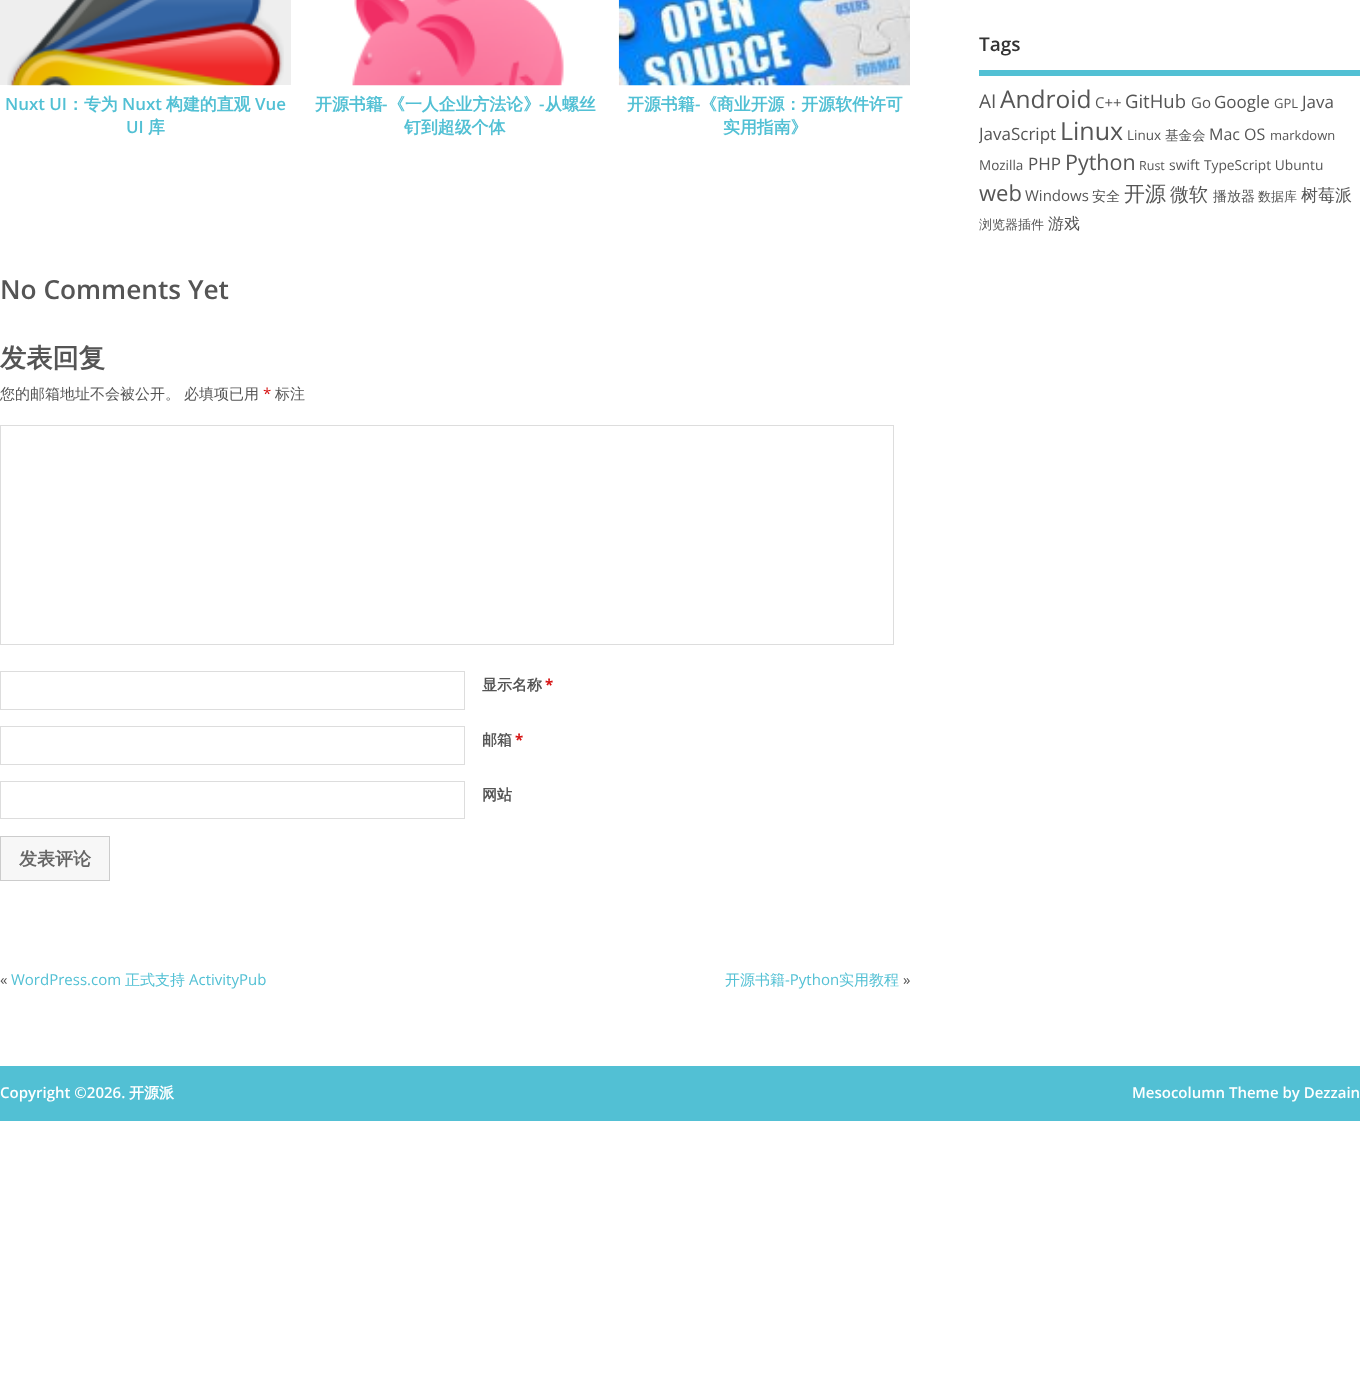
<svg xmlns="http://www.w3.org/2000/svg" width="1360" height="1378">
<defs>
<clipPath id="clip1"><rect x="979" y="85" width="381" height="153"/></clipPath>
</defs>
<rect width="100%" height="100%" fill="#fff"/>
<rect width="291" height="85" fill="#eee"/>
<image x="7" y="0" width="277" height="86" href="media/1.png"/>
<text x="5" y="110" style="font-family:Open Sans;font-size:16.9px;font-weight:600;fill:#52c0d4">Nuxt UI</text>
<text x="67" y="110" style="font-family:WenQuanYi Zen Hei;font-size:16.9px;font-weight:bold;fill:#52c0d4">：专为</text>
<text x="122" y="110" style="font-family:Open Sans;font-size:16.9px;font-weight:600;fill:#52c0d4">Nuxt</text>
<text x="166" y="110" style="font-family:WenQuanYi Zen Hei;font-size:16.9px;font-weight:bold;fill:#52c0d4">构建的直观</text>
<text x="255" y="110" style="font-family:Open Sans;font-size:16.9px;font-weight:600;fill:#52c0d4">Vue</text>
<text x="126" y="133" style="font-family:Open Sans;font-size:16.9px;font-weight:600;fill:#52c0d4">UI</text>
<text x="148" y="133" style="font-family:WenQuanYi Zen Hei;font-size:16.9px;font-weight:bold;fill:#52c0d4">库</text>
<image x="310" y="0" width="290" height="86" href="media/2.png"/>
<text x="315" y="110" style="font-family:WenQuanYi Zen Hei;font-size:16.9px;font-weight:bold;fill:#52c0d4">开源书籍</text>
<text x="382" y="110" style="font-family:Open Sans;font-size:16.9px;font-weight:600;fill:#52c0d4">-</text>
<text x="388" y="110" style="font-family:WenQuanYi Zen Hei;font-size:16.9px;font-weight:bold;fill:#52c0d4">《一人企业方法论》</text>
<text x="539" y="110" style="font-family:Open Sans;font-size:16.9px;font-weight:600;fill:#52c0d4">-</text>
<text x="545" y="110" style="font-family:WenQuanYi Zen Hei;font-size:16.9px;font-weight:bold;fill:#52c0d4">从螺丝</text>
<text x="404" y="133" style="font-family:WenQuanYi Zen Hei;font-size:16.9px;font-weight:bold;fill:#52c0d4">钉到超级个体</text>
<image x="618" y="0" width="292" height="86" href="media/3.png"/>
<text x="627" y="110" style="font-family:WenQuanYi Zen Hei;font-size:16.9px;font-weight:bold;fill:#52c0d4">开源书籍</text>
<text x="695" y="110" style="font-family:Open Sans;font-size:16.9px;font-weight:600;fill:#52c0d4">-</text>
<text x="700" y="110" style="font-family:WenQuanYi Zen Hei;font-size:16.9px;font-weight:bold;fill:#52c0d4">《商业开源：开源软件许可</text>
<text x="723" y="133" style="font-family:WenQuanYi Zen Hei;font-size:16.9px;font-weight:bold;fill:#52c0d4">实用指南》</text>
<text x="0" y="299" style="font-family:Open Sans;font-size:26.25px;font-weight:600;fill:#555">No Comments Yet</text>
<text x="0" y="367" style="font-family:WenQuanYi Zen Hei;font-size:26.25px;font-weight:bold;fill:#555">发表回复</text>
<text x="0" y="399" style="font-family:WenQuanYi Zen Hei;font-size:15px;font-weight:500;fill:#555">您的邮箱地址不会被公开。</text>
<text x="184" y="399" style="font-family:WenQuanYi Zen Hei;font-size:15px;font-weight:500;fill:#555">必填项已用</text>
<text x="263" y="399" style="font-family:Open Sans;font-size:15px;fill:#d61111">*</text>
<text x="275" y="399" style="font-family:WenQuanYi Zen Hei;font-size:15px;font-weight:500;fill:#555">标注</text>
<rect x="0.5" y="425.5" width="893" height="219" fill="none" stroke="#ddd"/>
<rect x="0.5" y="671.5" width="464" height="38" fill="none" stroke="#ddd"/>
<text x="482" y="690" style="font-family:WenQuanYi Zen Hei;font-size:15px;font-weight:bold;fill:#555">显示名称</text>
<text x="545" y="690" style="font-family:Open Sans;font-size:15px;font-weight:bold;fill:#d61111">*</text>
<rect x="0.5" y="726.5" width="464" height="38" fill="none" stroke="#ddd"/>
<text x="482" y="745" style="font-family:WenQuanYi Zen Hei;font-size:15px;font-weight:bold;fill:#555">邮箱</text>
<text x="515" y="745" style="font-family:Open Sans;font-size:15px;font-weight:bold;fill:#d61111">*</text>
<rect x="0.5" y="781.5" width="464" height="37" fill="none" stroke="#ddd"/>
<text x="482" y="800" style="font-family:WenQuanYi Zen Hei;font-size:15px;font-weight:bold;fill:#555">网站</text>
<rect x="0.5" y="836.5" width="109" height="44" fill="#f7f7f7" stroke="#ccc"/>
<text x="19" y="865" style="font-family:WenQuanYi Zen Hei;font-size:18px;font-weight:bold;fill:#666">发表评论</text>
<text x="0" y="985" style="font-family:Open Sans;font-size:15px;fill:#555">«</text>
<text x="11" y="985" style="font-family:Open Sans;font-size:15px;fill:#52c0d4">WordPress.com</text>
<text x="125" y="985" style="font-family:WenQuanYi Zen Hei;font-size:15px;font-weight:500;fill:#52c0d4">正式支持</text>
<text x="189" y="985" style="font-family:Open Sans;font-size:15px;fill:#52c0d4">ActivityPub</text>
<text x="725" y="985" style="font-family:WenQuanYi Zen Hei;font-size:15px;font-weight:500;fill:#52c0d4">开源书籍</text>
<text x="785" y="985" style="font-family:Open Sans;font-size:15px;fill:#52c0d4">-Python</text>
<text x="839" y="985" style="font-family:WenQuanYi Zen Hei;font-size:15px;font-weight:500;fill:#52c0d4">实用教程</text>
<text x="903" y="985" style="font-family:Open Sans;font-size:15px;fill:#555">»</text>
<rect x="979" y="70" width="381" height="6" fill="#52c0d4"/>
<text x="979" y="51" style="font-family:Open Sans;font-size:19px;font-weight:600;fill:#333">Tags</text>
<text x="979" y="108" style="font-family:Open Sans;font-size:19px;fill:#555">AI</text>
<text x="1000" y="108" style="font-family:Open Sans;font-size:24.5px;fill:#555">Android</text>
<text x="1095" y="108" style="font-family:Open Sans;font-size:15px;fill:#555">C++</text>
<text x="1125" y="108" style="font-family:Open Sans;font-size:18.5px;fill:#555">GitHub</text>
<text x="1191" y="108" style="font-family:Open Sans;font-size:15px;fill:#555">Go</text>
<text x="1214" y="108" style="font-family:Open Sans;font-size:17px;fill:#555">Google</text>
<text x="1274" y="108" style="font-family:Open Sans;font-size:13px;fill:#555">GPL</text>
<text x="1302" y="108" style="font-family:Open Sans;font-size:17px;fill:#555">Java</text>
<g clip-path="url(#clip1)">
<text x="979" y="140" style="font-family:Open Sans;font-size:17px;fill:#555">JavaScript</text>
</g>
<text x="1060" y="140" style="font-family:Open Sans;font-size:25px;fill:#555">Linux</text>
<text x="1127" y="140" style="font-family:Open Sans;font-size:13.5px;fill:#555">Linux</text>
<text x="1165" y="140" style="font-family:WenQuanYi Zen Hei;font-size:13.5px;font-weight:500;fill:#555">基金会</text>
<text x="1209" y="140" style="font-family:Open Sans;font-size:16px;fill:#555">Mac OS</text>
<text x="1270" y="140" style="font-family:Open Sans;font-size:13px;fill:#555">markdown</text>
<text x="979" y="170" style="font-family:Open Sans;font-size:13.5px;fill:#555">Mozilla</text>
<text x="1028" y="170" style="font-family:Open Sans;font-size:17px;fill:#555">PHP</text>
<text x="1065" y="170" style="font-family:Open Sans;font-size:21.5px;fill:#555">Python</text>
<text x="1139" y="170" style="font-family:Open Sans;font-size:12.5px;fill:#555">Rust</text>
<text x="1169" y="170" style="font-family:Open Sans;font-size:14px;fill:#555">swift</text>
<text x="1204" y="170" style="font-family:Open Sans;font-size:13.75px;fill:#555">TypeScript Ubuntu</text>
<text x="979" y="201" style="font-family:Open Sans;font-size:22px;fill:#555">web</text>
<text x="1025" y="201" style="font-family:Open Sans;font-size:15px;fill:#555">Windows</text>
<text x="1092" y="201" style="font-family:WenQuanYi Zen Hei;font-size:14px;font-weight:500;fill:#555">安全</text>
<text x="1124" y="201" style="font-family:WenQuanYi Zen Hei;font-size:21px;font-weight:500;fill:#555">开源</text>
<text x="1170" y="201" style="font-family:WenQuanYi Zen Hei;font-size:19px;font-weight:500;fill:#555">微软</text>
<text x="1213" y="201" style="font-family:WenQuanYi Zen Hei;font-size:14px;font-weight:500;fill:#555">播放器</text>
<text x="1258" y="201" style="font-family:WenQuanYi Zen Hei;font-size:13px;font-weight:500;fill:#555">数据库</text>
<text x="1301" y="201" style="font-family:WenQuanYi Zen Hei;font-size:17px;font-weight:500;fill:#555">树莓派</text>
<text x="979" y="229" style="font-family:WenQuanYi Zen Hei;font-size:13px;font-weight:500;fill:#555">浏览器插件</text>
<text x="1048" y="229" style="font-family:WenQuanYi Zen Hei;font-size:16px;font-weight:500;fill:#555">游戏</text>
<rect y="1066" width="1360" height="55" fill="#52c0d4"/>
<text x="0" y="1098" style="font-family:Open Sans;font-size:15px;font-weight:600;fill:#fff">Copyright ©2026.</text>
<text x="129" y="1098" style="font-family:WenQuanYi Zen Hei;font-size:15px;font-weight:bold;fill:#fff">开源派</text>
<text x="1132" y="1098" style="font-family:Open Sans;font-size:15px;font-weight:600;fill:#fff">Mesocolumn Theme by Dezzain</text>
</svg>
